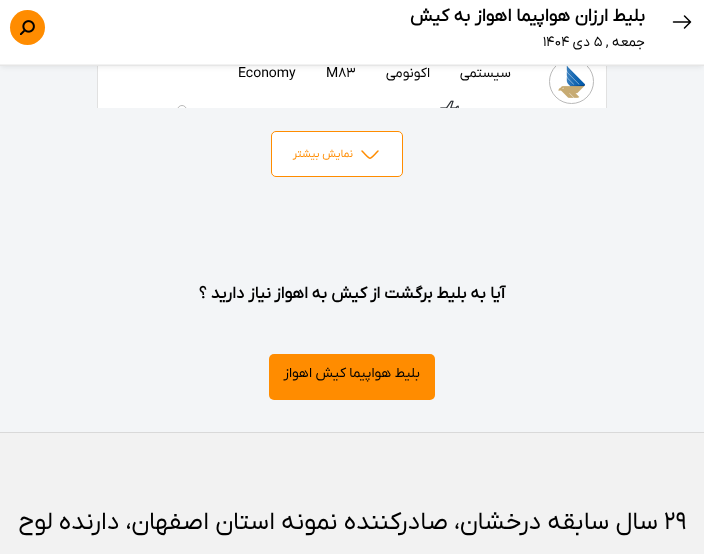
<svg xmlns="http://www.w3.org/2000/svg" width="704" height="554">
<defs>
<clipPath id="clip1"><rect x="82" width="540" height="199"/></clipPath>
</defs>
<rect width="100%" height="100%" fill="#f2f2f2"/>
<rect y="66" width="704" height="366" fill="#f3f5f7"/>
<g clip-path="url(#clip1)">
<rect x="97.5" y="38.5" width="509" height="165" rx="8.5" fill="#fff" stroke="#e1e1e1"/>
</g>
<circle cx="571.5" cy="81.5" r="22" fill="none" stroke="#b9b9b9"/>
<image x="558" y="66" width="27" height="32" href="media/2.png"/>
<rect x="1" y="3" width="702" height="64" fill="#00000014" filter="blur(2.5px)"/>
<rect width="704" height="64" fill="#fff"/>
<rect y="65" width="704" height="1" fill="#e6e6e6"/>
<rect y="64" width="704" height="1" fill="#f2f2f2"/>
<path d="M684.5 16l6 6l-6 6m-11-6h17" fill="none" stroke="#000" stroke-width="1.5" stroke-linecap="round" stroke-linejoin="round"/>
<text x="645" y="21" style="font-family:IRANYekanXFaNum;font-size:18px;font-weight:bold;direction:rtl;fill:#000">بلیط ارزان هواپیما اهواز به کیش</text>
<circle cx="27.5" cy="27.5" r="17.5" fill="#ff8c00"/>
<image x="20" y="20" width="15" height="15" href="media/1.png"/>
<text x="645" y="46" style="font-family:IRANYekanXFaNum;font-size:14px;direction:rtl;fill:#000">جمعه ,</text>
<text x="594" y="46" style="font-family:IRANYekanXFaNum;font-size:14px;fill:#000">۵</text>
<text x="590" y="46" style="font-family:IRANYekanXFaNum;font-size:14px;direction:rtl;fill:#000">دی</text>
<text x="543" y="46" style="font-family:IRANYekanXFaNum;font-size:14px;fill:#000">۱۴۰۴</text>
<text x="511" y="77" style="font-family:IRANYekanXFaNum;font-size:14px;direction:rtl;fill:#000">سیستمی</text>
<text x="430" y="77" style="font-family:IRANYekanXFaNum;font-size:14px;direction:rtl;fill:#000">اکونومی</text>
<text x="326" y="77" style="font-family:IRANYekanXFaNum;font-size:14px;fill:#000">M83</text>
<text x="238" y="77" style="font-family:IRANYekanXFaNum;font-size:14px;fill:#000">Economy</text>
<image x="440" y="100" width="19" height="8" href="media/3.png"/>
<circle cx="182" cy="110" r="4.5" fill="none" stroke="#b9b9b9"/>
<rect x="97" y="108" width="510" height="91" fill="#f3f5f7"/>
<rect x="271.5" y="131.5" width="131" height="45" rx="4.5" fill="#fff" stroke="#ff8c00"/>
<path d="M378 151c-9.5 9.5-6.5 9.5-16 0" fill="none" stroke="#ff8c00" stroke-width="1.5" stroke-linecap="round" stroke-linejoin="round"/>
<text x="353" y="157" style="font-family:IRANYekanXFaNum;font-size:11px;direction:rtl;fill:#ff8c00">نمایش بیشتر</text>
<text x="505" y="298" style="font-family:IRANYekanXFaNum;font-size:16.5px;font-weight:bold;direction:rtl;fill:#000">آیا به بلیط برگشت از</text>
<text x="367" y="298" style="font-family:IRANYekanXFaNum;font-size:16.5px;font-weight:bold;direction:rtl;fill:#000">کیش</text>
<text x="327" y="298" style="font-family:IRANYekanXFaNum;font-size:16.5px;font-weight:bold;direction:rtl;fill:#000">به</text>
<text x="308" y="298" style="font-family:IRANYekanXFaNum;font-size:16.5px;font-weight:bold;direction:rtl;fill:#000">اهواز</text>
<text x="271" y="298" style="font-family:IRANYekanXFaNum;font-size:16.5px;font-weight:bold;direction:rtl;fill:#000">نیاز دارید ؟</text>
<rect x="269" y="354" width="166" height="46" rx="5" fill="#ff8c00"/>
<text x="420" y="377" style="font-family:IRANYekanXFaNum;font-size:14px;direction:rtl;fill:#000">بلیط هواپیما</text>
<text x="346" y="377" style="font-family:IRANYekanXFaNum;font-size:14px;direction:rtl;fill:#000">کیش</text>
<text x="312" y="377" style="font-family:IRANYekanXFaNum;font-size:14px;direction:rtl;fill:#000">اهواز</text>
<rect y="432" width="704" height="1" fill="#d9d9d9"/>
<text x="664" y="529" style="font-family:IRANYekanXFaNum;font-size:25px;fill:#000">29</text>
<text x="658" y="529" style="font-family:IRANYekanXFaNum;font-size:25px;direction:rtl;fill:#000">سال سابقه درخشان، صادرکننده نمونه استان اصفهان، دارنده لوح</text>
</svg>
